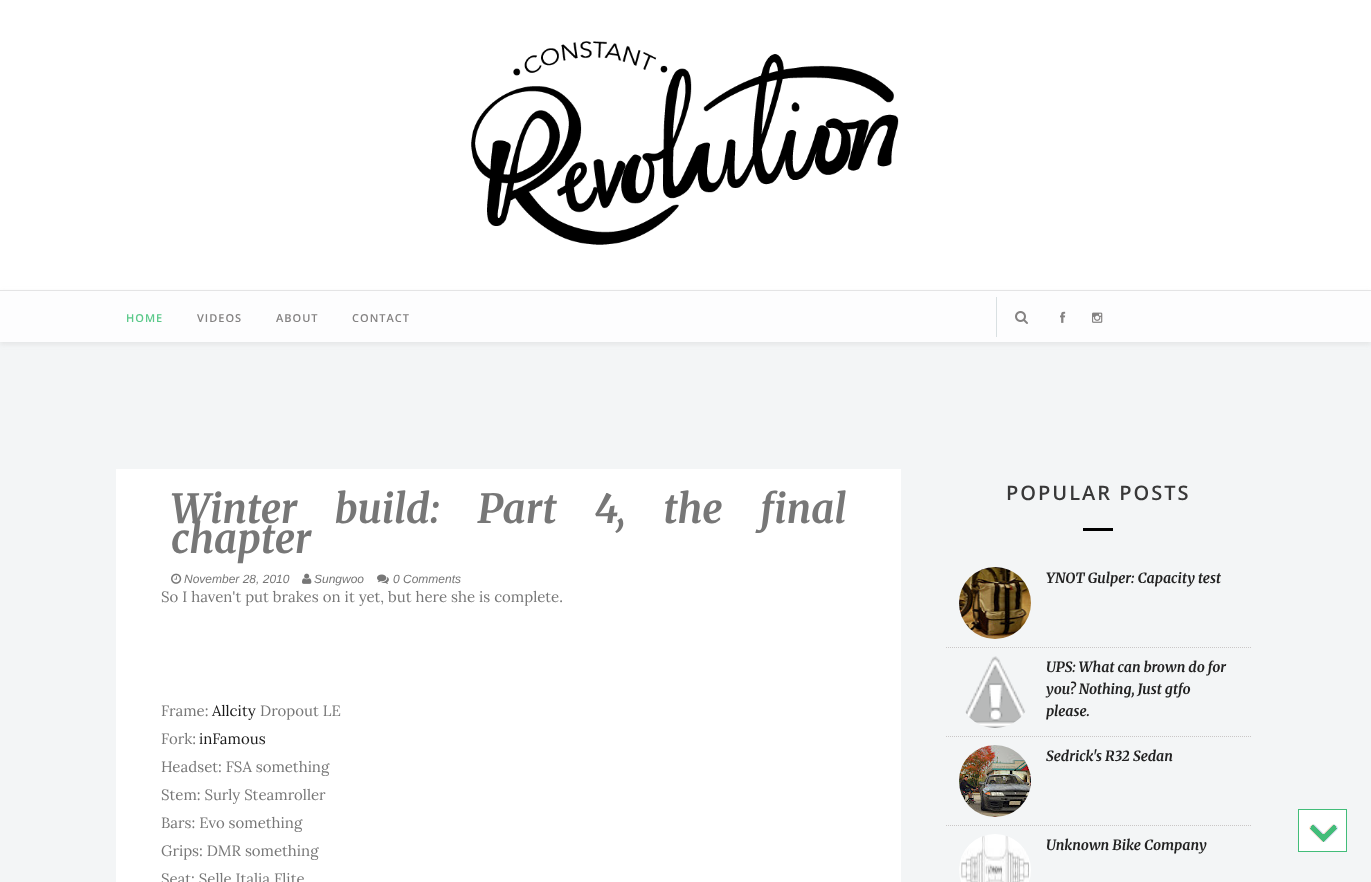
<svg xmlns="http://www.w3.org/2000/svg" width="1371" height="882">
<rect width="100%" height="100%" fill="#f3f5f6"/>
<rect width="1371" height="290" fill="#fff"/>
<image x="471" y="41" width="428" height="204" href="media/1.png"/>
<rect y="292" width="1371" height="52" fill="#bebebe4d" filter="blur(2.5px)"/>
<rect y="291" width="1371" height="51" fill="#fdfdfe"/>
<rect y="290" width="1371" height="1" fill="#e4e4e5"/>
<text x="126" y="322" style="font-family:Open Sans;font-size:11px;font-weight:600;letter-spacing:1px;fill:#5bc98a">HOME</text>
<text x="197" y="322" style="font-family:Open Sans;font-size:11px;font-weight:600;letter-spacing:1px;fill:#848282">VIDEOS</text>
<text x="276" y="322" style="font-family:Open Sans;font-size:11px;font-weight:600;letter-spacing:1px;fill:#848282">ABOUT</text>
<text x="352" y="322" style="font-family:Open Sans;font-size:11px;font-weight:600;letter-spacing:1px;fill:#848282">CONTACT</text>
<rect x="996" y="297" width="1" height="40" fill="#d9e0e2"/>
<image x="1015" y="311" width="13" height="13" href="media/2.png"/>
<image x="1060" y="311" width="6" height="12" href="media/3.png"/>
<image x="1092" y="312" width="11" height="11" href="media/4.png"/>
<rect x="116" y="469" width="785" height="413" fill="#fff"/>
<text x="171" y="523" word-spacing="29" style="font-family:Merriweather;font-size:40px;font-weight:bold;font-style:italic;fill:#777">Winter build: Part 4, the final</text>
<text x="171" y="553" style="font-family:Merriweather;font-size:40px;font-weight:bold;font-style:italic;fill:#777">chapter</text>
<image x="171" y="573" width="11" height="11" href="media/5.png"/>
<text x="184" y="583" style="font-family:Liberation Sans;font-size:12px;font-style:italic;fill:#777">November 28, 2010</text>
<image x="302" y="573" width="10" height="11" href="media/6.png"/>
<text x="314" y="583" style="font-family:Liberation Sans;font-size:12px;font-style:italic;fill:#777">Sungwoo</text>
<image x="377" y="574" width="12" height="10" href="media/7.png"/>
<text x="393" y="583" style="font-family:Liberation Sans;font-size:12px;font-style:italic;fill:#777">0 Comments</text>
<text x="161" y="602" style="font-family:Lora;font-size:15px;fill:#777">So I haven't put brakes on it yet, but here she is complete.</text>
<text x="161" y="716" style="font-family:Lora;font-size:15px;fill:#777">Frame:</text>
<text x="212" y="716" style="font-family:Lora;font-size:15px;fill:#191919">Allcity</text>
<text x="260" y="716" style="font-family:Lora;font-size:15px;fill:#777">Dropout LE</text>
<text x="161" y="744" style="font-family:Lora;font-size:15px;fill:#777">Fork:</text>
<text x="199" y="744" style="font-family:Lora;font-size:15px;fill:#191919">inFamous</text>
<text x="161" y="772" style="font-family:Lora;font-size:15px;fill:#777">Headset: FSA something</text>
<text x="161" y="800" style="font-family:Lora;font-size:15px;fill:#777">Stem: Surly Steamroller</text>
<text x="161" y="828" style="font-family:Lora;font-size:15px;fill:#777">Bars: Evo something</text>
<text x="161" y="856" style="font-family:Lora;font-size:15px;fill:#777">Grips: DMR something</text>
<text x="161" y="884" style="font-family:Lora;font-size:15px;fill:#777">Seat: Selle Italia Flite</text>
<text x="1006" y="500" style="font-family:Open Sans;font-size:20px;font-weight:600;letter-spacing:2px;fill:#383838">POPULAR POSTS</text>
<rect x="1083" y="528" width="30" height="3" fill="#000"/>
<path d="M946 647.5h306" fill="none" stroke="#cac7c7" stroke-dasharray="1 1"/>
<image x="959" y="567" width="72" height="72" href="media/8.png"/>
<text x="1046" y="583" style="font-family:Merriweather;font-size:14px;font-weight:bold;font-style:italic;fill:#222">YNOT Gulper: Capacity test</text>
<path d="M946 736.5h306" fill="none" stroke="#cac7c7" stroke-dasharray="1 1"/>
<image x="965" y="656" width="61" height="72" href="media/9.png"/>
<text x="1046" y="672" style="font-family:Merriweather;font-size:14px;font-weight:bold;font-style:italic;fill:#222">UPS: What can brown do for</text>
<text x="1046" y="694" style="font-family:Merriweather;font-size:14px;font-weight:bold;font-style:italic;fill:#222">you? Nothing, Just gtfo</text>
<text x="1046" y="716" style="font-family:Merriweather;font-size:14px;font-weight:bold;font-style:italic;fill:#222">please.</text>
<path d="M946 825.5h306" fill="none" stroke="#cac7c7" stroke-dasharray="1 1"/>
<image x="959" y="745" width="72" height="72" href="media/10.png"/>
<text x="1046" y="761" style="font-family:Merriweather;font-size:14px;font-weight:bold;font-style:italic;fill:#222">Sedrick's R32 Sedan</text>
<image x="959" y="834" width="72" height="48" href="media/11.png"/>
<text x="1046" y="850" style="font-family:Merriweather;font-size:14px;font-weight:bold;font-style:italic;fill:#222">Unknown Bike Company</text>
<image x="1299" y="810" width="47" height="41" href="media/12.png"/>
<rect x="1298.5" y="809.5" width="48" height="42" fill="none" stroke="#42bd79"/>
</svg>
